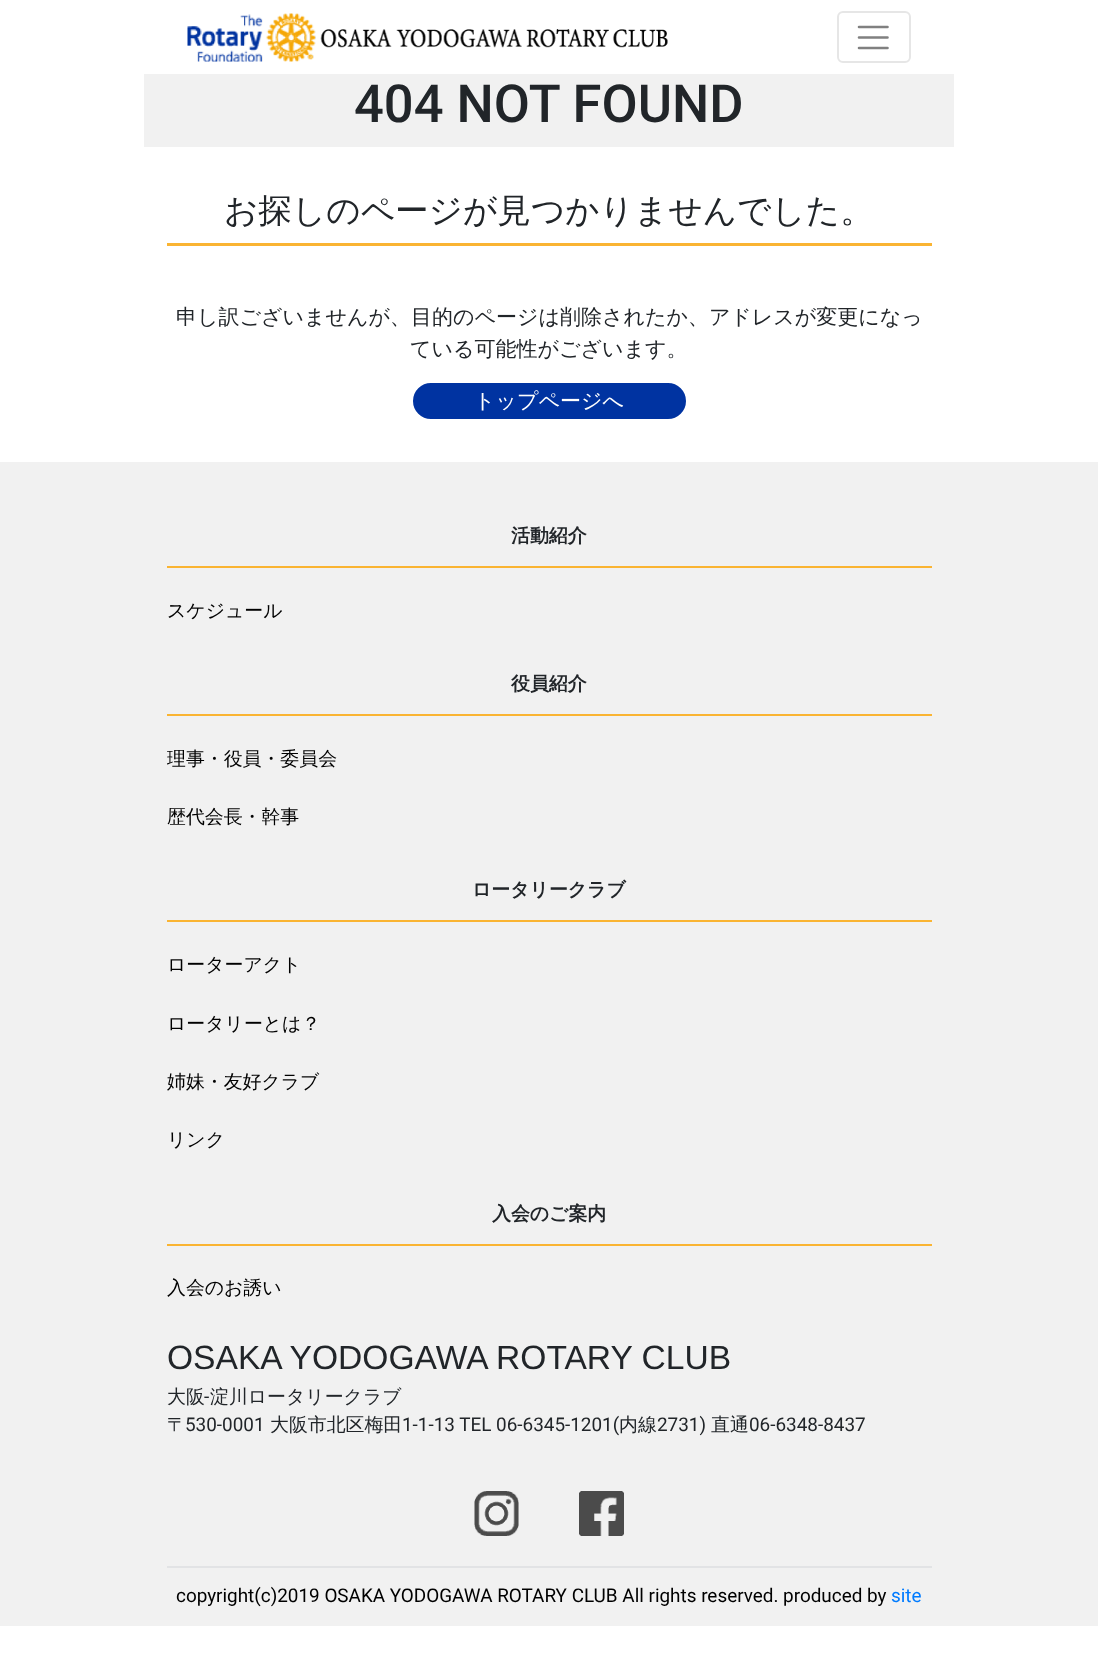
<svg xmlns="http://www.w3.org/2000/svg" width="1098" height="1662">
<rect width="100%" height="100%" fill="#fff"/>
<image x="187" y="13" width="481" height="49" href="media/1.png"/>
<rect x="838" y="12" width="72" height="50" rx="5" fill="none" stroke="#e6e6e6" stroke-width="2"/>
<path d="M859 27h28.5m-28.5 10.5h28.5m-28.5 10.5h28.5" fill="none" stroke="#808080" stroke-width="2.6" stroke-linecap="round"/>
<rect x="144" y="74" width="810" height="73" fill="#f1f1f1"/>
<text x="354" y="122" style="font-family:Roboto;font-size:52.5px;font-weight:500;fill:#212529">404 NOT FOUND</text>
<rect x="167" y="243" width="765" height="3" fill="#fab432"/>
<text x="224" y="222" style="font-family:WenQuanYi Zen Hei;font-size:33.6px;font-weight:500;fill:#212529">お探しのページが見つかりませんでした。</text>
<text x="176" y="324" style="font-family:WenQuanYi Zen Hei;font-size:21px;font-weight:500;fill:#212529">申し訳ございませんが、目的のページは削除されたか、アドレスが変更になっ</text>
<text x="410" y="356" style="font-family:WenQuanYi Zen Hei;font-size:21px;font-weight:500;fill:#212529">ている可能性がございます。</text>
<rect x="414" y="384" width="271" height="34" rx="17" fill="#0033a1" stroke="#0033a1" stroke-width="2"/>
<text x="474" y="408" style="font-family:WenQuanYi Zen Hei;font-size:21px;font-weight:500;fill:#fff">トップページへ</text>
<rect y="462" width="1098" height="1164" fill="#f1f1f1"/>
<rect x="167" y="566" width="765" height="2" fill="#fab432"/>
<text x="511" y="542" style="font-family:WenQuanYi Zen Hei;font-size:18.9px;font-weight:bold;fill:#212529">活動紹介</text>
<text x="167" y="617" style="font-family:WenQuanYi Zen Hei;font-size:18.9px;font-weight:500;fill:#000">スケジュール</text>
<rect x="167" y="714" width="765" height="2" fill="#fab432"/>
<text x="511" y="690" style="font-family:WenQuanYi Zen Hei;font-size:18.9px;font-weight:bold;fill:#212529">役員紹介</text>
<text x="167" y="765" style="font-family:WenQuanYi Zen Hei;font-size:18.9px;font-weight:500;fill:#000">理事・役員・委員会</text>
<text x="167" y="823" style="font-family:WenQuanYi Zen Hei;font-size:18.9px;font-weight:500;fill:#000">歴代会長・幹事</text>
<rect x="167" y="920" width="765" height="2" fill="#fab432"/>
<text x="472" y="896" style="font-family:WenQuanYi Zen Hei;font-size:18.9px;font-weight:bold;fill:#212529">ロータリークラブ</text>
<text x="167" y="971" style="font-family:WenQuanYi Zen Hei;font-size:18.9px;font-weight:500;fill:#000">ローターアクト</text>
<text x="167" y="1030" style="font-family:WenQuanYi Zen Hei;font-size:18.9px;font-weight:500;fill:#000">ロータリーとは？</text>
<text x="167" y="1088" style="font-family:WenQuanYi Zen Hei;font-size:18.9px;font-weight:500;fill:#000">姉妹・友好クラブ</text>
<text x="167" y="1146" style="font-family:WenQuanYi Zen Hei;font-size:18.9px;font-weight:500;fill:#000">リンク</text>
<rect x="167" y="1244" width="765" height="2" fill="#fab432"/>
<text x="492" y="1220" style="font-family:WenQuanYi Zen Hei;font-size:18.9px;font-weight:bold;fill:#212529">入会のご案内</text>
<text x="167" y="1294" style="font-family:WenQuanYi Zen Hei;font-size:18.9px;font-weight:500;fill:#000">入会のお誘い</text>
<text x="167" y="1369" style="font-family:Liberation Sans;font-size:33.6px;fill:#212529">OSAKA YODOGAWA ROTARY CLUB</text>
<text x="167" y="1403" style="font-family:WenQuanYi Zen Hei;font-size:18.9px;font-weight:500;fill:#212529">大阪</text>
<text x="204" y="1403" style="font-family:Roboto;font-size:18.9px;fill:#212529">-</text>
<text x="210" y="1403" style="font-family:WenQuanYi Zen Hei;font-size:18.9px;font-weight:500;fill:#212529">淀川ロータリークラブ</text>
<text x="167" y="1431" style="font-family:WenQuanYi Zen Hei;font-size:18.9px;font-weight:500;fill:#212529">〒</text>
<text x="185" y="1431" style="font-family:Roboto;font-size:18.9px;fill:#212529">530-0001</text>
<text x="270" y="1431" style="font-family:WenQuanYi Zen Hei;font-size:18.9px;font-weight:500;fill:#212529">大阪市北区梅田</text>
<text x="402" y="1431" style="font-family:Roboto;font-size:18.9px;fill:#212529">1-1-13 TEL 06-6345-1201(</text>
<text x="619" y="1431" style="font-family:WenQuanYi Zen Hei;font-size:18.9px;font-weight:500;fill:#212529">内線</text>
<text x="657" y="1431" style="font-family:Roboto;font-size:18.9px;fill:#212529">2731)</text>
<text x="711" y="1431" style="font-family:WenQuanYi Zen Hei;font-size:18.9px;font-weight:500;fill:#212529">直通</text>
<text x="749" y="1431" style="font-family:Roboto;font-size:18.9px;fill:#212529">06-6348-8437</text>
<image x="474" y="1491" width="45" height="45" href="media/2.png"/>
<image x="579" y="1491" width="45" height="45" href="media/3.png"/>
<rect x="167" y="1566" width="765" height="2" fill="#e2e3e5"/>
<text x="176" y="1602" style="font-family:Roboto;font-size:18.9px;fill:#000">copyright(c)2019 OSAKA YODOGAWA ROTARY CLUB All rights reserved. produced by</text>
<text x="891" y="1602" style="font-family:Roboto;font-size:18.9px;fill:#007bff">site</text>
</svg>
